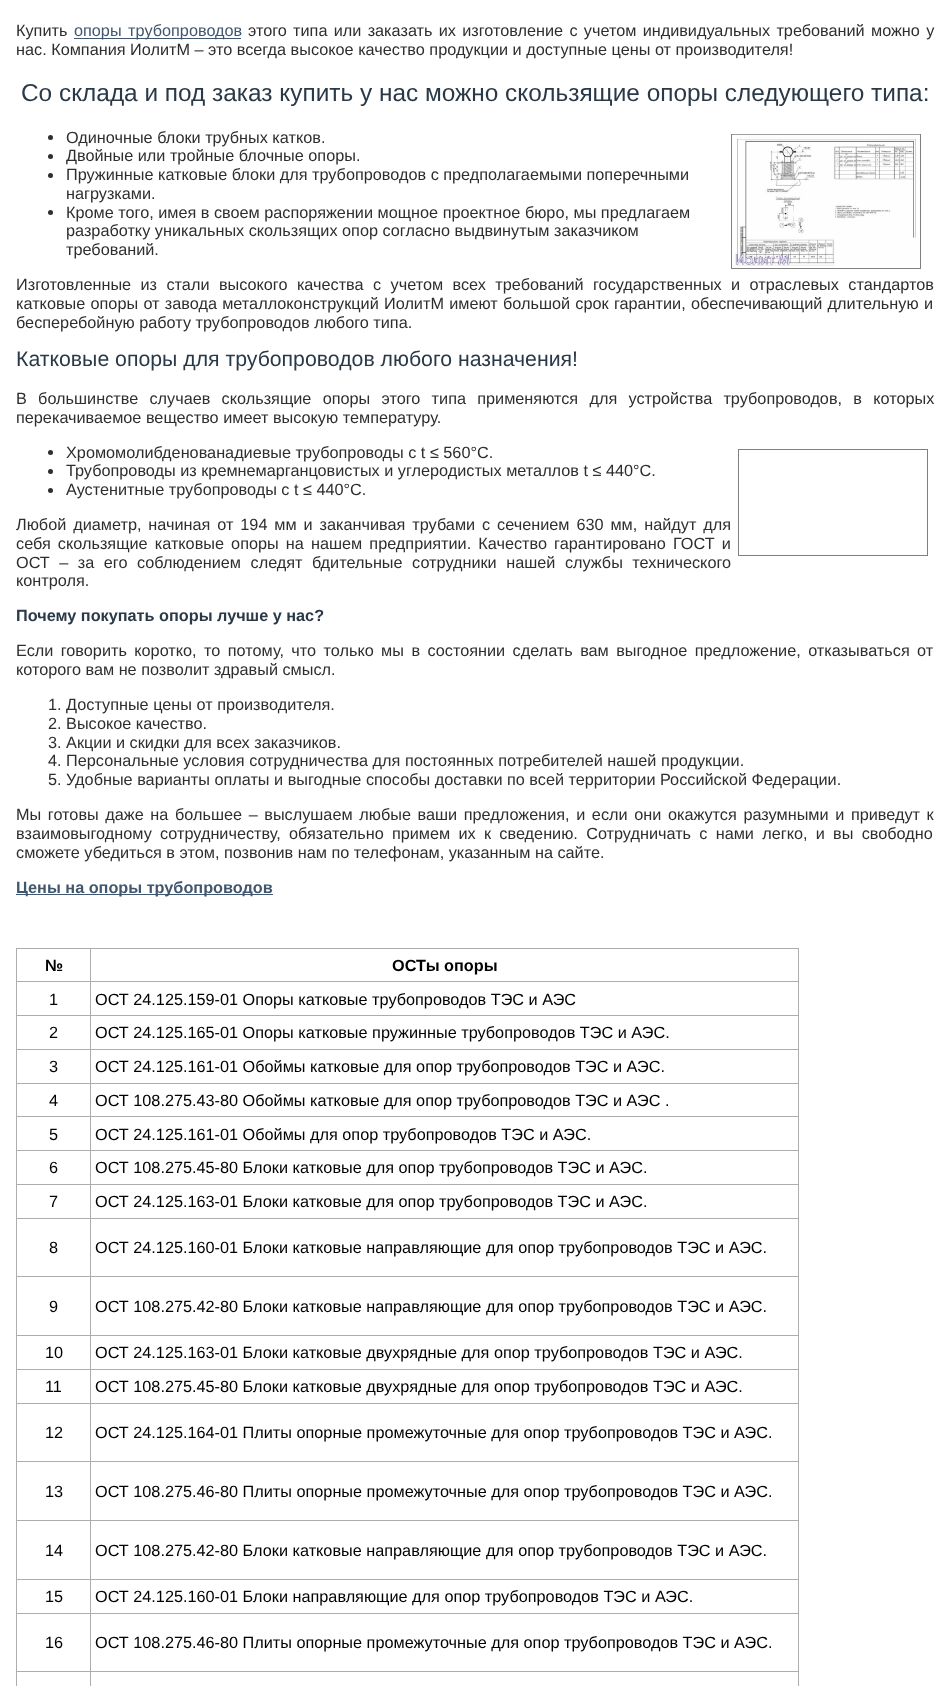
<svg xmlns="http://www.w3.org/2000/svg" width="949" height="1686">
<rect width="100%" height="100%" fill="#fff"/>
<text x="16" y="36" style="font-family:Liberation Sans;font-size:16.25px;fill:#2e2e2e">Купить</text>
<rect x="74" y="38" width="167" height="1" fill="#40576f"/>
<text x="74" y="36" word-spacing="2" style="font-family:Liberation Sans;font-size:16.25px;fill:#40576f">опоры трубопроводов</text>
<text x="248" y="36" word-spacing="1.75" style="font-family:Liberation Sans;font-size:16.25px;fill:#2e2e2e">этого типа или заказать их изготовление с учетом индивидуальных требований можно у</text>
<text x="16" y="55" style="font-family:Liberation Sans;font-size:16.25px;fill:#2e2e2e">нас. Компания ИолитМ – это всегда высокое качество продукции и доступные цены от производителя!</text>
<text x="21" y="101" style="font-family:Liberation Sans;font-size:24.4px;fill:#2a3948">Со склада и под заказ купить у нас можно скользящие опоры следующего типа:</text>
<circle cx="50.5" cy="137.5" r="2.5" fill="#2e2e2e"/>
<text x="66" y="143" style="font-family:Liberation Sans;font-size:16.25px;fill:#2e2e2e">Одиночные блоки трубных катков.</text>
<circle cx="50.5" cy="156.5" r="2.5" fill="#2e2e2e"/>
<text x="66" y="161" style="font-family:Liberation Sans;font-size:16.25px;fill:#2e2e2e">Двойные или тройные блочные опоры.</text>
<circle cx="50.5" cy="175.5" r="2.5" fill="#2e2e2e"/>
<text x="66" y="180" style="font-family:Liberation Sans;font-size:16.25px;fill:#2e2e2e">Пружинные катковые блоки для трубопроводов c предполагаемыми поперечными</text>
<text x="66" y="199" style="font-family:Liberation Sans;font-size:16.25px;fill:#2e2e2e">нагрузками.</text>
<circle cx="50.5" cy="212.5" r="2.5" fill="#2e2e2e"/>
<text x="66" y="218" style="font-family:Liberation Sans;font-size:16.25px;fill:#2e2e2e">Кроме того, имея в своем распоряжении мощное проектное бюро, мы предлагаем</text>
<text x="66" y="236" style="font-family:Liberation Sans;font-size:16.25px;fill:#2e2e2e">разработку уникальных скользящих опор согласно выдвинутым заказчиком</text>
<text x="66" y="255" style="font-family:Liberation Sans;font-size:16.25px;fill:#2e2e2e">требований.</text>
<rect x="731.5" y="134.5" width="189" height="134" fill="none" stroke="#808080"/>
<image x="732" y="134" width="188" height="132" href="media/1.png"/>
<text x="16" y="290" word-spacing="4.9" style="font-family:Liberation Sans;font-size:16.25px;fill:#2e2e2e">Изготовленные из стали высокого качества с учетом всех требований государственных и отраслевых стандартов</text>
<text x="16" y="309" word-spacing="0.75" style="font-family:Liberation Sans;font-size:16.25px;fill:#2e2e2e">катковые опоры от завода металлоконструкций ИолитМ имеют большой срок гарантии, обеспечивающий длительную и</text>
<text x="16" y="328" style="font-family:Liberation Sans;font-size:16.25px;fill:#2e2e2e">бесперебойную работу трубопроводов любого типа.</text>
<text x="16" y="366" style="font-family:Liberation Sans;font-size:21.25px;fill:#2a3948">Катковые опоры для трубопроводов любого назначения!</text>
<text x="16" y="404" word-spacing="6.75" style="font-family:Liberation Sans;font-size:16.25px;fill:#2e2e2e">В большинстве случаев скользящие опоры этого типа применяются для устройства трубопроводов, в которых</text>
<text x="16" y="423" style="font-family:Liberation Sans;font-size:16.25px;fill:#2e2e2e">перекачиваемое вещество имеет высокую температуру.</text>
<circle cx="50.5" cy="452.5" r="2.5" fill="#2e2e2e"/>
<text x="66" y="458" style="font-family:Liberation Sans;font-size:16.25px;fill:#2e2e2e">Хромомолибденованадиевые трубопроводы с t ≤ 560°С.</text>
<circle cx="50.5" cy="471.5" r="2.5" fill="#2e2e2e"/>
<text x="66" y="476" style="font-family:Liberation Sans;font-size:16.25px;fill:#2e2e2e">Трубопроводы из кремнемарганцовистых и углеродистых металлов t ≤ 440°С.</text>
<circle cx="50.5" cy="490.5" r="2.5" fill="#2e2e2e"/>
<text x="66" y="495" style="font-family:Liberation Sans;font-size:16.25px;fill:#2e2e2e">Аустенитные трубопроводы с t ≤ 440°С.</text>
<rect x="738.5" y="449.5" width="189" height="106" fill="none" stroke="#808080"/>
<text x="16" y="530" word-spacing="2.4" style="font-family:Liberation Sans;font-size:16.25px;fill:#2e2e2e">Любой диаметр, начиная от 194 мм и заканчивая трубами с сечением 630 мм, найдут для</text>
<text x="16" y="549" word-spacing="2.6" style="font-family:Liberation Sans;font-size:16.25px;fill:#2e2e2e">себя скользящие катковые опоры на нашем предприятии. Качество гарантировано ГОСТ и</text>
<text x="16" y="568" word-spacing="5" style="font-family:Liberation Sans;font-size:16.25px;fill:#2e2e2e">ОСТ – за его соблюдением следят бдительные сотрудники нашей службы технического</text>
<text x="16" y="586" style="font-family:Liberation Sans;font-size:16.25px;fill:#2e2e2e">контроля.</text>
<text x="16" y="621" style="font-family:Liberation Sans;font-size:16.25px;font-weight:bold;fill:#2a3948">Почему покупать опоры лучше у нас?</text>
<text x="16" y="656" word-spacing="2.9" style="font-family:Liberation Sans;font-size:16.25px;fill:#2e2e2e">Если говорить коротко, то потому, что только мы в состоянии сделать вам выгодное предложение, отказываться от</text>
<text x="16" y="675" style="font-family:Liberation Sans;font-size:16.25px;fill:#2e2e2e">которого вам не позволит здравый смысл.</text>
<text x="48" y="710" style="font-family:Liberation Sans;font-size:16.25px;fill:#2e2e2e">1. Доступные цены от производителя.</text>
<text x="48" y="729" style="font-family:Liberation Sans;font-size:16.25px;fill:#2e2e2e">2. Высокое качество.</text>
<text x="48" y="748" style="font-family:Liberation Sans;font-size:16.25px;fill:#2e2e2e">3. Акции и скидки для всех заказчиков.</text>
<text x="48" y="766" style="font-family:Liberation Sans;font-size:16.25px;fill:#2e2e2e">4. Персональные условия сотрудничества для постоянных потребителей нашей продукции.</text>
<text x="48" y="785" style="font-family:Liberation Sans;font-size:16.25px;fill:#2e2e2e">5. Удобные варианты оплаты и выгодные способы доставки по всей территории Российской Федерации.</text>
<text x="16" y="820" word-spacing="2.1" style="font-family:Liberation Sans;font-size:16.25px;fill:#2e2e2e">Мы готовы даже на большее – выслушаем любые ваши предложения, и если они окажутся разумными и приведут к</text>
<text x="16" y="839" word-spacing="3.75" style="font-family:Liberation Sans;font-size:16.25px;fill:#2e2e2e">взаимовыгодному сотрудничеству, обязательно примем их к сведению. Сотрудничать с нами легко, и вы свободно</text>
<text x="16" y="858" style="font-family:Liberation Sans;font-size:16.25px;fill:#2e2e2e">сможете убедиться в этом, позвонив нам по телефонам, указанным на сайте.</text>
<rect x="16" y="894" width="257" height="1" fill="#40576f"/>
<text x="16" y="893" style="font-family:Liberation Sans;font-size:16.25px;font-weight:bold;fill:#40576f">Цены на опоры трубопроводов</text>
<rect x="16" y="948" width="783" height="1" fill="#afacac"/>
<rect x="798" y="948" width="1" height="738" fill="#afacac"/>
<rect x="16" y="948" width="1" height="738" fill="#afacac"/>
<text x="45" y="971" style="font-family:Liberation Sans;font-size:16.25px;font-weight:bold;fill:#000">№</text>
<rect x="90" y="981" width="709" height="1" fill="#afacac"/>
<rect x="90" y="1015" width="709" height="1" fill="#afacac"/>
<rect x="90" y="1049" width="709" height="1" fill="#afacac"/>
<rect x="90" y="1083" width="709" height="1" fill="#afacac"/>
<rect x="90" y="1116" width="709" height="1" fill="#afacac"/>
<rect x="90" y="1150" width="709" height="1" fill="#afacac"/>
<rect x="90" y="1184" width="709" height="1" fill="#afacac"/>
<rect x="90" y="1218" width="709" height="1" fill="#afacac"/>
<rect x="90" y="1276" width="709" height="1" fill="#afacac"/>
<rect x="90" y="1335" width="709" height="1" fill="#afacac"/>
<rect x="90" y="1369" width="709" height="1" fill="#afacac"/>
<rect x="90" y="1403" width="709" height="1" fill="#afacac"/>
<rect x="90" y="1461" width="709" height="1" fill="#afacac"/>
<rect x="90" y="1520" width="709" height="1" fill="#afacac"/>
<rect x="90" y="1579" width="709" height="1" fill="#afacac"/>
<rect x="90" y="1613" width="709" height="1" fill="#afacac"/>
<rect x="90" y="1671" width="709" height="1" fill="#afacac"/>
<rect x="90" y="1671" width="1" height="15" fill="#afacac"/>
<rect x="16" y="1671" width="75" height="1" fill="#afacac"/>
<rect x="90" y="1613" width="1" height="60" fill="#afacac"/>
<rect x="16" y="1613" width="75" height="1" fill="#afacac"/>
<rect x="90" y="1579" width="1" height="35" fill="#afacac"/>
<rect x="16" y="1579" width="75" height="1" fill="#afacac"/>
<rect x="90" y="1520" width="1" height="60" fill="#afacac"/>
<rect x="16" y="1520" width="75" height="1" fill="#afacac"/>
<rect x="90" y="1461" width="1" height="60" fill="#afacac"/>
<rect x="16" y="1461" width="75" height="1" fill="#afacac"/>
<rect x="90" y="1403" width="1" height="60" fill="#afacac"/>
<rect x="16" y="1403" width="75" height="1" fill="#afacac"/>
<rect x="90" y="1369" width="1" height="35" fill="#afacac"/>
<rect x="16" y="1369" width="75" height="1" fill="#afacac"/>
<rect x="90" y="1335" width="1" height="35" fill="#afacac"/>
<rect x="16" y="1335" width="75" height="1" fill="#afacac"/>
<rect x="90" y="1276" width="1" height="60" fill="#afacac"/>
<rect x="16" y="1276" width="75" height="1" fill="#afacac"/>
<rect x="90" y="1218" width="1" height="60" fill="#afacac"/>
<rect x="16" y="1218" width="75" height="1" fill="#afacac"/>
<rect x="90" y="1184" width="1" height="35" fill="#afacac"/>
<rect x="16" y="1184" width="75" height="1" fill="#afacac"/>
<rect x="90" y="1150" width="1" height="35" fill="#afacac"/>
<rect x="16" y="1150" width="75" height="1" fill="#afacac"/>
<rect x="90" y="1116" width="1" height="35" fill="#afacac"/>
<rect x="16" y="1116" width="75" height="1" fill="#afacac"/>
<rect x="90" y="1083" width="1" height="35" fill="#afacac"/>
<rect x="16" y="1083" width="75" height="1" fill="#afacac"/>
<rect x="90" y="1049" width="1" height="35" fill="#afacac"/>
<rect x="16" y="1049" width="75" height="1" fill="#afacac"/>
<rect x="90" y="1015" width="1" height="35" fill="#afacac"/>
<rect x="16" y="1015" width="75" height="1" fill="#afacac"/>
<rect x="90" y="981" width="1" height="35" fill="#afacac"/>
<rect x="16" y="981" width="75" height="1" fill="#afacac"/>
<rect x="90" y="948" width="1" height="35" fill="#afacac"/>
<text x="392" y="971" style="font-family:Liberation Sans;font-size:16.25px;font-weight:bold;fill:#000">ОСТы опоры</text>
<text x="49" y="1005" style="font-family:Liberation Sans;font-size:16.25px;fill:#000">1</text>
<text x="95" y="1005" style="font-family:Liberation Sans;font-size:16.25px;fill:#000">ОСТ 24.125.159-01 Опоры катковые трубопроводов ТЭС и АЭС</text>
<text x="49" y="1038" style="font-family:Liberation Sans;font-size:16.25px;fill:#000">2</text>
<text x="95" y="1038" style="font-family:Liberation Sans;font-size:16.25px;fill:#000">ОСТ 24.125.165-01 Опоры катковые пружинные трубопроводов ТЭС и АЭС.</text>
<text x="49" y="1072" style="font-family:Liberation Sans;font-size:16.25px;fill:#000">3</text>
<text x="95" y="1072" style="font-family:Liberation Sans;font-size:16.25px;fill:#000">ОСТ 24.125.161-01 Обоймы катковые для опор трубопроводов ТЭС и АЭС.</text>
<text x="49" y="1106" style="font-family:Liberation Sans;font-size:16.25px;fill:#000">4</text>
<text x="95" y="1106" style="font-family:Liberation Sans;font-size:16.25px;fill:#000">ОСТ 108.275.43-80 Обоймы катковые для опор трубопроводов ТЭС и АЭС .</text>
<text x="49" y="1140" style="font-family:Liberation Sans;font-size:16.25px;fill:#000">5</text>
<text x="95" y="1140" style="font-family:Liberation Sans;font-size:16.25px;fill:#000">ОСТ 24.125.161-01 Обоймы для опор трубопроводов ТЭС и АЭС.</text>
<text x="49" y="1173" style="font-family:Liberation Sans;font-size:16.25px;fill:#000">6</text>
<text x="95" y="1173" style="font-family:Liberation Sans;font-size:16.25px;fill:#000">ОСТ 108.275.45-80 Блоки катковые для опор трубопроводов ТЭС и АЭС.</text>
<text x="49" y="1207" style="font-family:Liberation Sans;font-size:16.25px;fill:#000">7</text>
<text x="95" y="1207" style="font-family:Liberation Sans;font-size:16.25px;fill:#000">ОСТ 24.125.163-01 Блоки катковые для опор трубопроводов ТЭС и АЭС.</text>
<text x="49" y="1253" style="font-family:Liberation Sans;font-size:16.25px;fill:#000">8</text>
<text x="95" y="1253" style="font-family:Liberation Sans;font-size:16.25px;fill:#000">ОСТ 24.125.160-01 Блоки катковые направляющие для опор трубопроводов ТЭС и АЭС.</text>
<text x="49" y="1312" style="font-family:Liberation Sans;font-size:16.25px;fill:#000">9</text>
<text x="95" y="1312" style="font-family:Liberation Sans;font-size:16.25px;fill:#000">ОСТ 108.275.42-80 Блоки катковые направляющие для опор трубопроводов ТЭС и АЭС.</text>
<text x="45" y="1358" style="font-family:Liberation Sans;font-size:16.25px;fill:#000">10</text>
<text x="95" y="1358" style="font-family:Liberation Sans;font-size:16.25px;fill:#000">ОСТ 24.125.163-01 Блоки катковые двухрядные для опор трубопроводов ТЭС и АЭС.</text>
<text x="45" y="1392" style="font-family:Liberation Sans;font-size:16.25px;fill:#000">11</text>
<text x="95" y="1392" style="font-family:Liberation Sans;font-size:16.25px;fill:#000">ОСТ 108.275.45-80 Блоки катковые двухрядные для опор трубопроводов ТЭС и АЭС.</text>
<text x="45" y="1438" style="font-family:Liberation Sans;font-size:16.25px;fill:#000">12</text>
<text x="95" y="1438" style="font-family:Liberation Sans;font-size:16.25px;fill:#000">ОСТ 24.125.164-01 Плиты опорные промежуточные для опор трубопроводов ТЭС и АЭС.</text>
<text x="45" y="1497" style="font-family:Liberation Sans;font-size:16.25px;fill:#000">13</text>
<text x="95" y="1497" style="font-family:Liberation Sans;font-size:16.25px;fill:#000">ОСТ 108.275.46-80 Плиты опорные промежуточные для опор трубопроводов ТЭС и АЭС.</text>
<text x="45" y="1556" style="font-family:Liberation Sans;font-size:16.25px;fill:#000">14</text>
<text x="95" y="1556" style="font-family:Liberation Sans;font-size:16.25px;fill:#000">ОСТ 108.275.42-80 Блоки катковые направляющие для опор трубопроводов ТЭС и АЭС.</text>
<text x="45" y="1602" style="font-family:Liberation Sans;font-size:16.25px;fill:#000">15</text>
<text x="95" y="1602" style="font-family:Liberation Sans;font-size:16.25px;fill:#000">ОСТ 24.125.160-01 Блоки направляющие для опор трубопроводов ТЭС и АЭС.</text>
<text x="45" y="1648" style="font-family:Liberation Sans;font-size:16.25px;fill:#000">16</text>
<text x="95" y="1648" style="font-family:Liberation Sans;font-size:16.25px;fill:#000">ОСТ 108.275.46-80 Плиты опорные промежуточные для опор трубопроводов ТЭС и АЭС.</text>
</svg>
